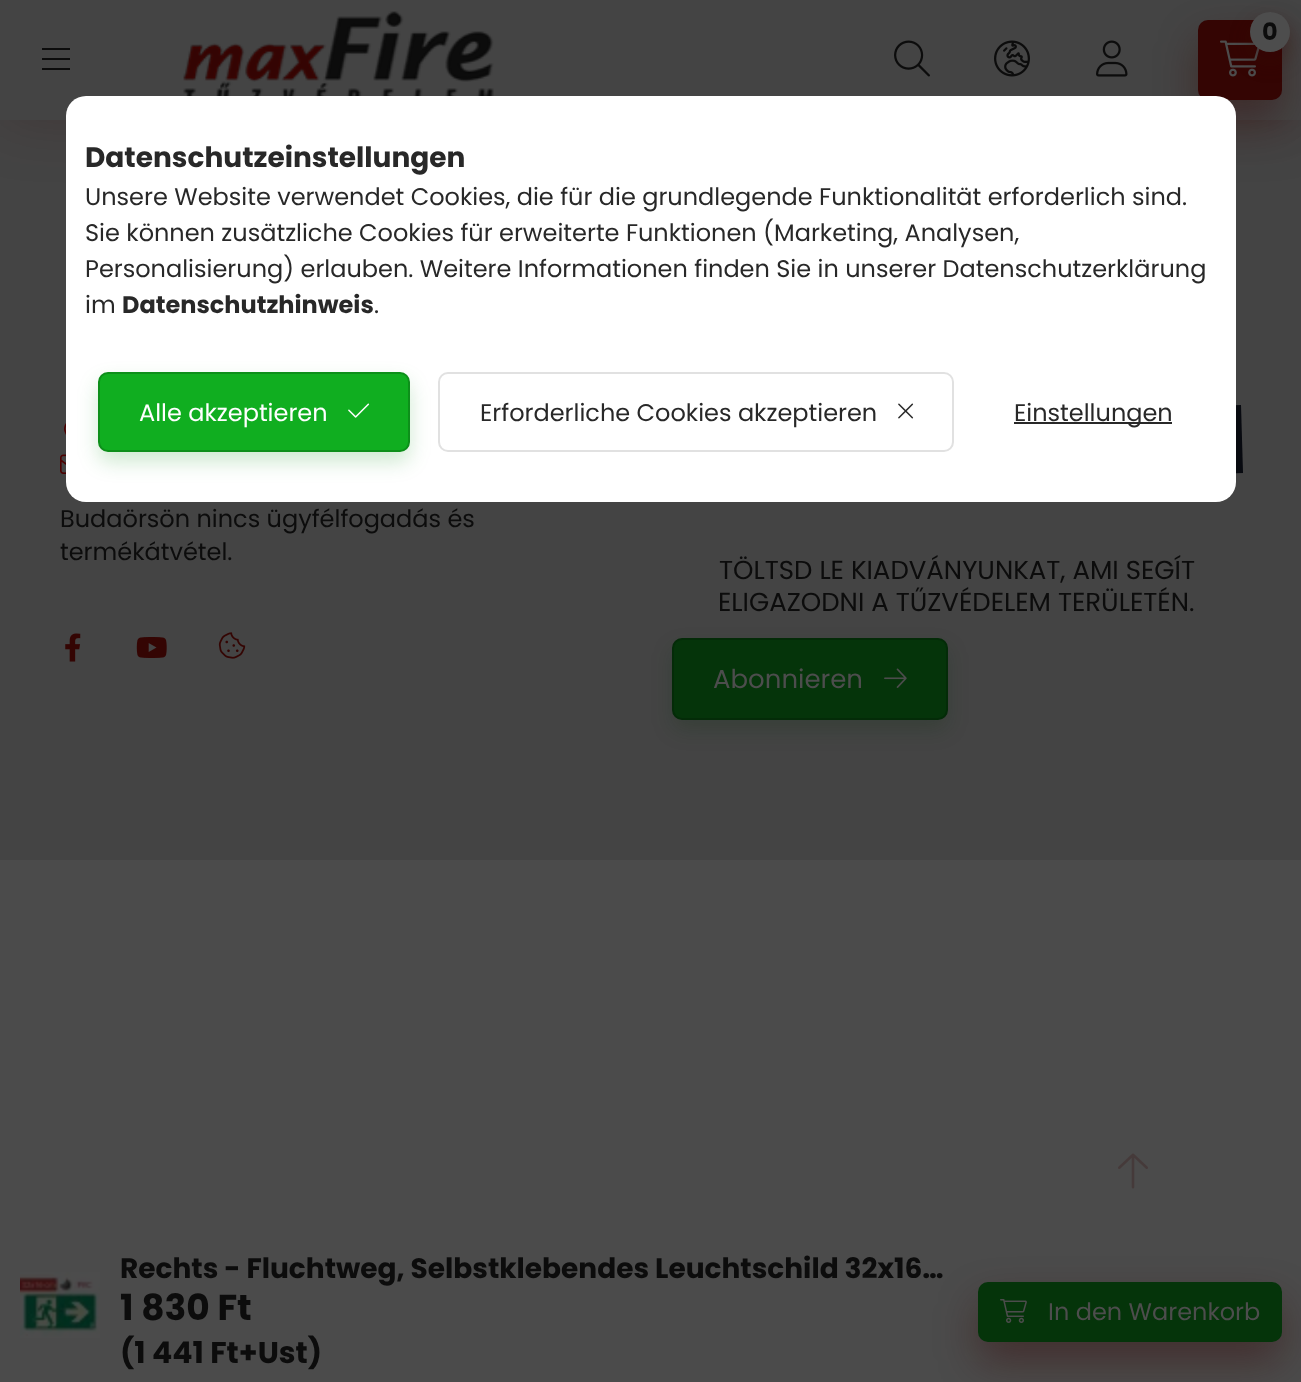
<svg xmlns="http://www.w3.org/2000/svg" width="1301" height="1382">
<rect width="100%" height="100%" fill="#4b4b4b"/>
<rect y="120" width="1301" height="740" fill="#444"/>
<rect width="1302" height="120" fill="#34050333" filter="blur(30px)"/>
<rect width="1301" height="120" fill="#444"/>
<rect x="42" y="48" width="28" height="2" fill="#0c0c0c"/>
<rect x="42" y="58" width="28" height="2" fill="#0c0c0c"/>
<rect x="42" y="68" width="28" height="2" fill="#0c0c0c"/>
<image x="183" y="11" width="311" height="85" href="media/1.png"/>
<rect x="1198" y="40" width="84" height="80" rx="10" fill="#34050366" filter="blur(20px)"/>
<rect x="1198" y="20" width="84" height="80" rx="10" fill="#340503"/>
<image x="1220" y="40" width="40" height="37" href="media/2.png"/>
<rect x="1250" y="22" width="40" height="40" rx="20" fill="#34050366" filter="blur(10px)"/>
<circle cx="1270" cy="32" r="20" fill="#4d4d4d"/>
<text x="1262" y="40" style="font-family:Poppins;font-size:24px;font-weight:bold;fill:#0c0c0c">0</text>
<image x="894" y="40" width="36" height="37" href="media/3.png"/>
<image x="994" y="40" width="36" height="37" href="media/4.png"/>
<image x="1096" y="40" width="32" height="37" href="media/5.png"/>
<image x="64" y="423" width="2" height="12" href="media/6.png"/>
<image x="60" y="454" width="6" height="20" href="media/7.png"/>
<text x="60" y="527" style="font-family:Poppins;font-size:24px;fill:#0c0c0c">Budaörsön nincs ügyfélfogadás és</text>
<text x="60" y="560" style="font-family:Poppins;font-size:24px;fill:#0c0c0c">termékátvétel.</text>
<image x="65" y="633" width="16" height="29" href="media/8.png"/>
<image x="136" y="637" width="31" height="21" href="media/9.png"/>
<image x="218" y="632" width="28" height="27" href="media/10.png"/>
<path d="M670 425l571-20l2 68l-571 20z" fill="#080a10"/>
<text x="719" y="579" style="font-family:Poppins;font-size:26px;fill:#0c0c0c">TÖLTSD LE KIADVÁNYUNKAT, AMI SEGÍT</text>
<text x="718" y="611" style="font-family:Poppins;font-size:26px;fill:#0c0c0c">ELIGAZODNI A TŰZVÉDELEM TERÜLETÉN.</text>
<rect x="672" y="648" width="276" height="82" rx="10" fill="#042b0833" filter="blur(10px)"/>
<rect x="673" y="639" width="274" height="80" rx="9" fill="#05340a" stroke="#042b08" stroke-width="2"/>
<text x="713" y="688" style="font-family:Poppins;font-size:26px;fill:#4d4d4d">Abonnieren</text>
<image x="884" y="668" width="23" height="20" href="media/11.png"/>
<image x="20" y="1272" width="80" height="66" href="media/12.png"/>
<text x="120" y="1278" style="font-family:Poppins;font-size:28px;font-weight:bold;fill:#0c0c0c">Rechts - Fluchtweg, Selbstklebendes Leuchtschild 32x16…</text>
<text x="120" y="1320" style="font-family:Poppins;font-size:36px;font-weight:bold;fill:#0c0c0c">1 830 Ft</text>
<text x="120" y="1363" style="font-family:Poppins;font-size:30px;font-weight:bold;fill:#0c0c0c">(1 441 Ft+Ust)</text>
<rect x="978" y="1302" width="304" height="60" rx="10" fill="#34050366" filter="blur(20px)"/>
<rect x="978" y="1282" width="304" height="60" rx="10" fill="#05340a"/>
<image x="1000" y="1299" width="27" height="24" href="media/13.png"/>
<text x="1048" y="1320" style="font-family:Poppins;font-size:24px;fill:#4d4d4d">In den Warenkorb</text>
<rect x="66" y="96" width="1170" height="406" rx="20" fill="#fff"/>
<text x="85" y="167" style="font-family:Poppins;font-size:28px;font-weight:bold;fill:#282828">Datenschutzeinstellungen</text>
<text x="85" y="205" style="font-family:Poppins;font-size:24px;fill:#282828">Unsere Website verwendet Cookies, die für die grundlegende Funktionalität erforderlich sind.</text>
<text x="85" y="241" style="font-family:Poppins;font-size:24px;fill:#282828">Sie können zusätzliche Cookies für erweiterte Funktionen (Marketing, Analysen,</text>
<text x="85" y="277" style="font-family:Poppins;font-size:24px;fill:#282828">Personalisierung) erlauben. Weitere Informationen finden Sie in unserer Datenschutzerklärung</text>
<text x="85" y="313" style="font-family:Poppins;font-size:24px;fill:#282828">im</text>
<text x="122" y="313" style="font-family:Poppins;font-size:24px;font-weight:bold;fill:#282828">Datenschutzhinweis</text>
<text x="374" y="313" style="font-family:Poppins;font-size:24px;fill:#282828">.</text>
<rect x="98" y="382" width="312" height="80" rx="10" fill="#0d8f1a33" filter="blur(10px)"/>
<rect x="99" y="373" width="310" height="78" rx="9" fill="#10ae20" stroke="#0d8f1a" stroke-width="2"/>
<text x="139" y="421" style="font-family:Poppins;font-size:24px;fill:#fff">Alle akzeptieren</text>
<image x="348" y="403" width="22" height="15" href="media/14.png"/>
<rect x="439" y="373" width="514" height="78" rx="9" fill="none" stroke="#e1e1e1" stroke-width="2"/>
<text x="480" y="421" style="font-family:Poppins;font-size:24px;fill:#282828">Erforderliche Cookies akzeptieren</text>
<image x="898" y="403" width="16" height="16" href="media/15.png"/>
<rect x="1014" y="422" width="158" height="2" fill="#282828"/>
<text x="1014" y="421" style="font-family:Poppins;font-size:24px;fill:#282828">Einstellungen</text>
<image x="1118" y="1153" width="30" height="36" href="media/16.png"/>
</svg>
